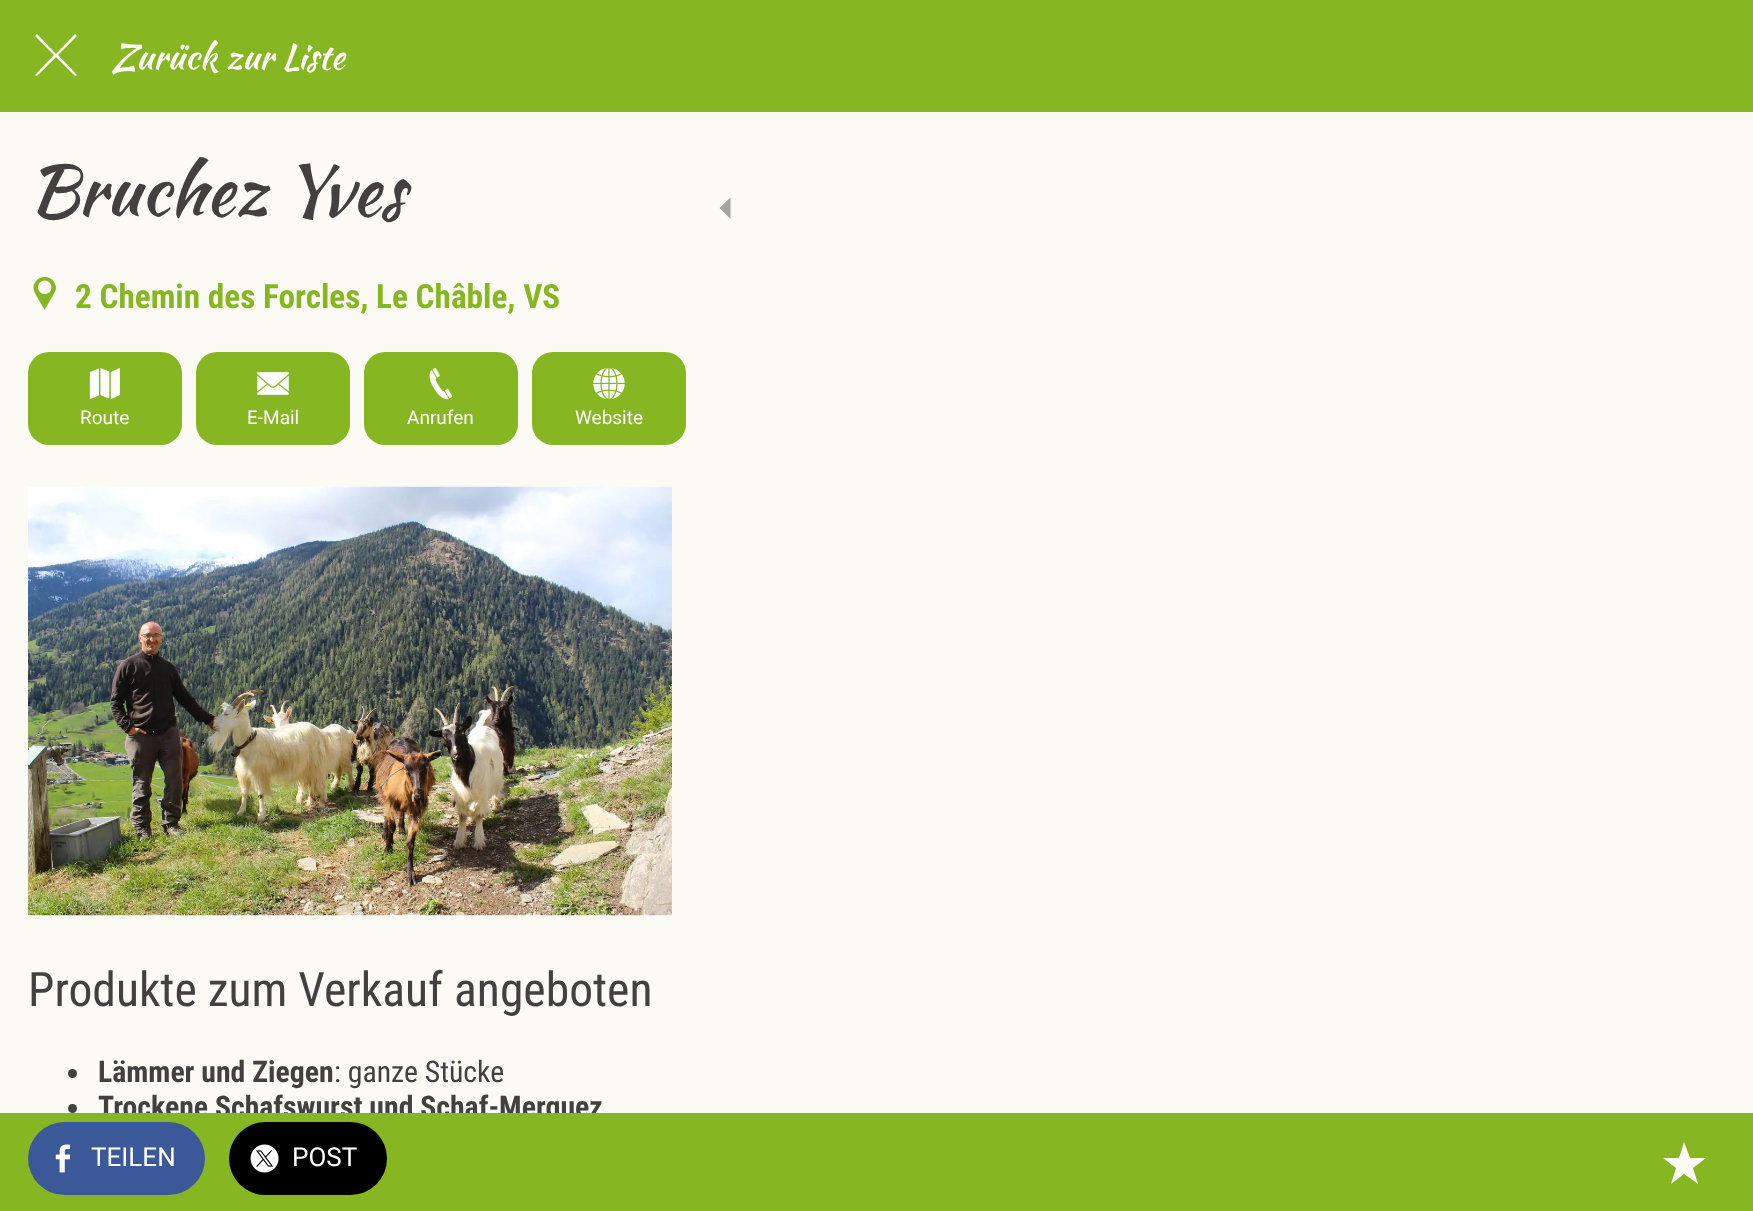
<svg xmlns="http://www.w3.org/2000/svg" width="1753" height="1211">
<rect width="100%" height="100%" fill="#fcfaf4"/>
<rect width="1753" height="112" fill="#86b723"/>
<path d="M77 36l-2-2l-19 20l-19-20l-2 2l19 19l-19 20l2 1l19-19l19 19l2-1l-19-20z" fill="#fff"/>
<text x="112" y="69" style="font-family:Kaushan Script;font-size:35px;fill:#fff">Zurück zur Liste</text>
<text x="28" y="215" style="font-family:Kaushan Script;font-size:70px;fill:#43413f">Bruchez Yves</text>
<image x="33" y="276" width="23" height="34" href="media/1.png"/>
<text x="75" y="308" style="font-family:Roboto Condensed;font-size:33.25px;font-weight:bold;fill:#86b723">2 Chemin des Forcles, Le Châble, VS</text>
<rect x="28" y="352" width="154" height="93" rx="21" fill="#86b723"/>
<image x="89" y="368" width="31" height="31" href="media/2.png"/>
<text x="80" y="424" style="font-family:Roboto;font-size:19px;fill:#fff">Route</text>
<rect x="196" y="352" width="154" height="93" rx="21" fill="#86b723"/>
<image x="257" y="372" width="32" height="23" href="media/3.png"/>
<text x="247" y="424" style="font-family:Roboto;font-size:19px;fill:#fff">E-Mail</text>
<rect x="364" y="352" width="154" height="93" rx="21" fill="#86b723"/>
<image x="429" y="367" width="24" height="33" href="media/4.png"/>
<text x="407" y="424" style="font-family:Roboto;font-size:19px;fill:#fff">Anrufen</text>
<rect x="532" y="352" width="154" height="93" rx="21" fill="#86b723"/>
<image x="593" y="368" width="32" height="31" href="media/5.png"/>
<text x="575" y="424" style="font-family:Roboto;font-size:19px;fill:#fff">Website</text>
<image x="28" y="486" width="644" height="430" href="media/6.png"/>
<text x="28" y="1006" style="font-family:Roboto Condensed;font-size:47.6px;fill:#43413f">Produkte zum Verkauf angeboten</text>
<circle cx="72.5" cy="1073.5" r="4.5" fill="#43413f"/>
<text x="98" y="1082" style="font-family:Roboto Condensed;font-size:29.75px;font-weight:bold;fill:#43413f">Lämmer und Ziegen</text>
<text x="334" y="1082" style="font-family:Roboto Condensed;font-size:29.75px;fill:#43413f">: ganze Stücke</text>
<circle cx="72.5" cy="1108.5" r="4.5" fill="#43413f"/>
<text x="98" y="1117" style="font-family:Roboto Condensed;font-size:29.75px;font-weight:bold;fill:#43413f">Trockene Schafswurst und Schaf-Merguez</text>
<rect y="1113" width="1753" height="98" fill="#86b723"/>
<rect x="28" y="1122" width="177" height="73" rx="36.5" fill="#3b5999"/>
<image x="55" y="1144" width="16" height="29" href="media/7.png"/>
<text x="91" y="1166" style="font-family:Roboto;font-size:26px;fill:#fff">TEILEN</text>
<rect x="229" y="1122" width="158" height="73" rx="36.5" fill="#000"/>
<image x="250" y="1144" width="29" height="29" href="media/8.png"/>
<text x="292" y="1166" style="font-family:Roboto;font-size:26px;fill:#fff">POST</text>
<path d="M1706 1158h-16l-6-16l-5 16h-16l13 10l-5 16l13-10l14 10l-5-16z" fill="#fcfaf4"/>
<path d="M730.5 197.5l-11 10.5l11 11z" fill="#a4a4a1"/>
</svg>
